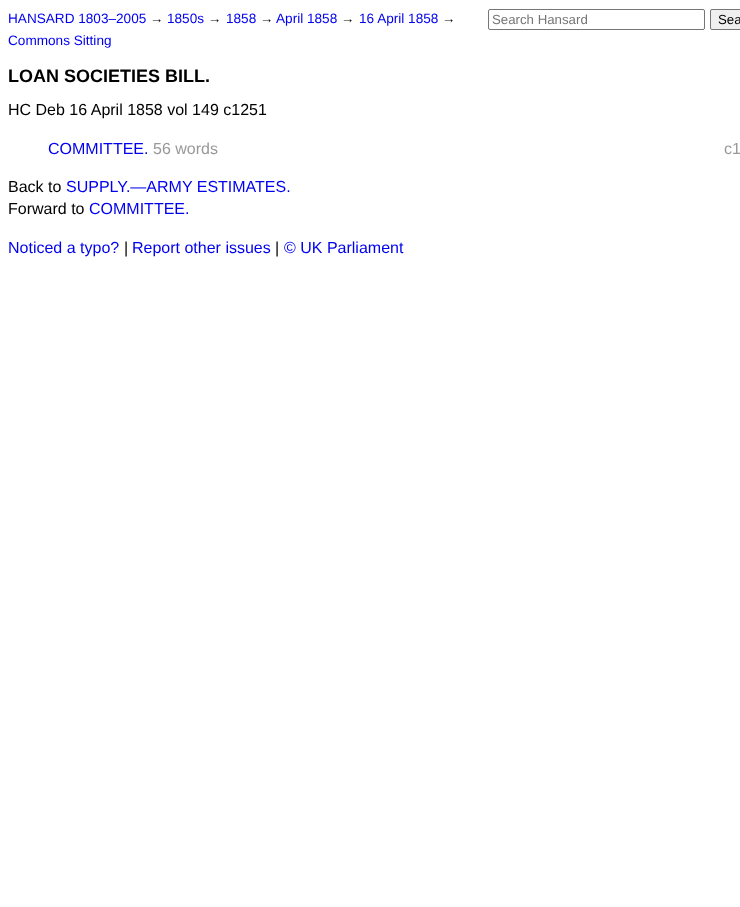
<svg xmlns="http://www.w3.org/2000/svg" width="740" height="907">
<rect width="100%" height="100%" fill="#fff"/>
<text x="8" y="23" style="font-family:Liberation Sans;font-size:13.6px;fill:#00e">HANSARD 1803–2005</text>
<text x="150" y="23" style="font-family:Liberation Sans;font-size:13.6px;fill:#000">→</text>
<text x="167" y="23" style="font-family:Liberation Sans;font-size:13.6px;fill:#00e">1850s</text>
<text x="208" y="23" style="font-family:Liberation Sans;font-size:13.6px;fill:#000">→</text>
<text x="226" y="23" style="font-family:Liberation Sans;font-size:13.6px;fill:#00e">1858</text>
<text x="260" y="23" style="font-family:Liberation Sans;font-size:13.6px;fill:#000">→</text>
<text x="276" y="23" style="font-family:Liberation Sans;font-size:13.6px;fill:#00e">April 1858</text>
<text x="341" y="23" style="font-family:Liberation Sans;font-size:13.6px;fill:#000">→</text>
<text x="359" y="23" style="font-family:Liberation Sans;font-size:13.6px;fill:#00e">16 April 1858</text>
<text x="442" y="23" style="font-family:Liberation Sans;font-size:13.6px;fill:#000">→</text>
<text x="8" y="45" style="font-family:Liberation Sans;font-size:13.6px;fill:#00e">Commons Sitting</text>
<rect x="488.5" y="9.5" width="216" height="20" rx="1.5" fill="none" stroke="#767676"/>
<text x="492" y="24" style="font-family:Liberation Sans;font-size:13.25px;fill:#757575">Search Hansard</text>
<rect x="710.5" y="9.5" width="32" height="20" rx="1.5" fill="#efefef" stroke="#767676"/>
<text x="718" y="24" style="font-family:Liberation Sans;font-size:13.25px;fill:#000">Sea</text>
<text x="8" y="82" style="font-family:Liberation Sans;font-size:18px;font-weight:bold;fill:#000">LOAN SOCIETIES BILL.</text>
<text x="8" y="115" style="font-family:Liberation Sans;font-size:16px;fill:#000">HC Deb 16 April 1858 vol 149 c1251</text>
<text x="48" y="154" style="font-family:Liberation Sans;font-size:16px;fill:#00e">COMMITTEE.</text>
<text x="153" y="154" style="font-family:Liberation Sans;font-size:16px;fill:#999">56 words</text>
<text x="724" y="154" style="font-family:Liberation Sans;font-size:16px;fill:#999">c1</text>
<text x="8" y="192" style="font-family:Liberation Sans;font-size:16px;fill:#000">Back to</text>
<text x="66" y="192" style="font-family:Liberation Sans;font-size:16px;fill:#00e">SUPPLY.—ARMY ESTIMATES.</text>
<text x="8" y="214" style="font-family:Liberation Sans;font-size:16px;fill:#000">Forward to</text>
<text x="89" y="214" style="font-family:Liberation Sans;font-size:16px;fill:#00e">COMMITTEE.</text>
<text x="8" y="253" style="font-family:Liberation Sans;font-size:16px;fill:#00e">Noticed a typo?</text>
<text x="124" y="253" style="font-family:Liberation Sans;font-size:16px;fill:#000">|</text>
<text x="132" y="253" style="font-family:Liberation Sans;font-size:16px;fill:#00e">Report other issues</text>
<text x="275" y="253" style="font-family:Liberation Sans;font-size:16px;fill:#000">|</text>
<text x="284" y="253" style="font-family:Liberation Sans;font-size:16px;fill:#00e">© UK Parliament</text>
</svg>
